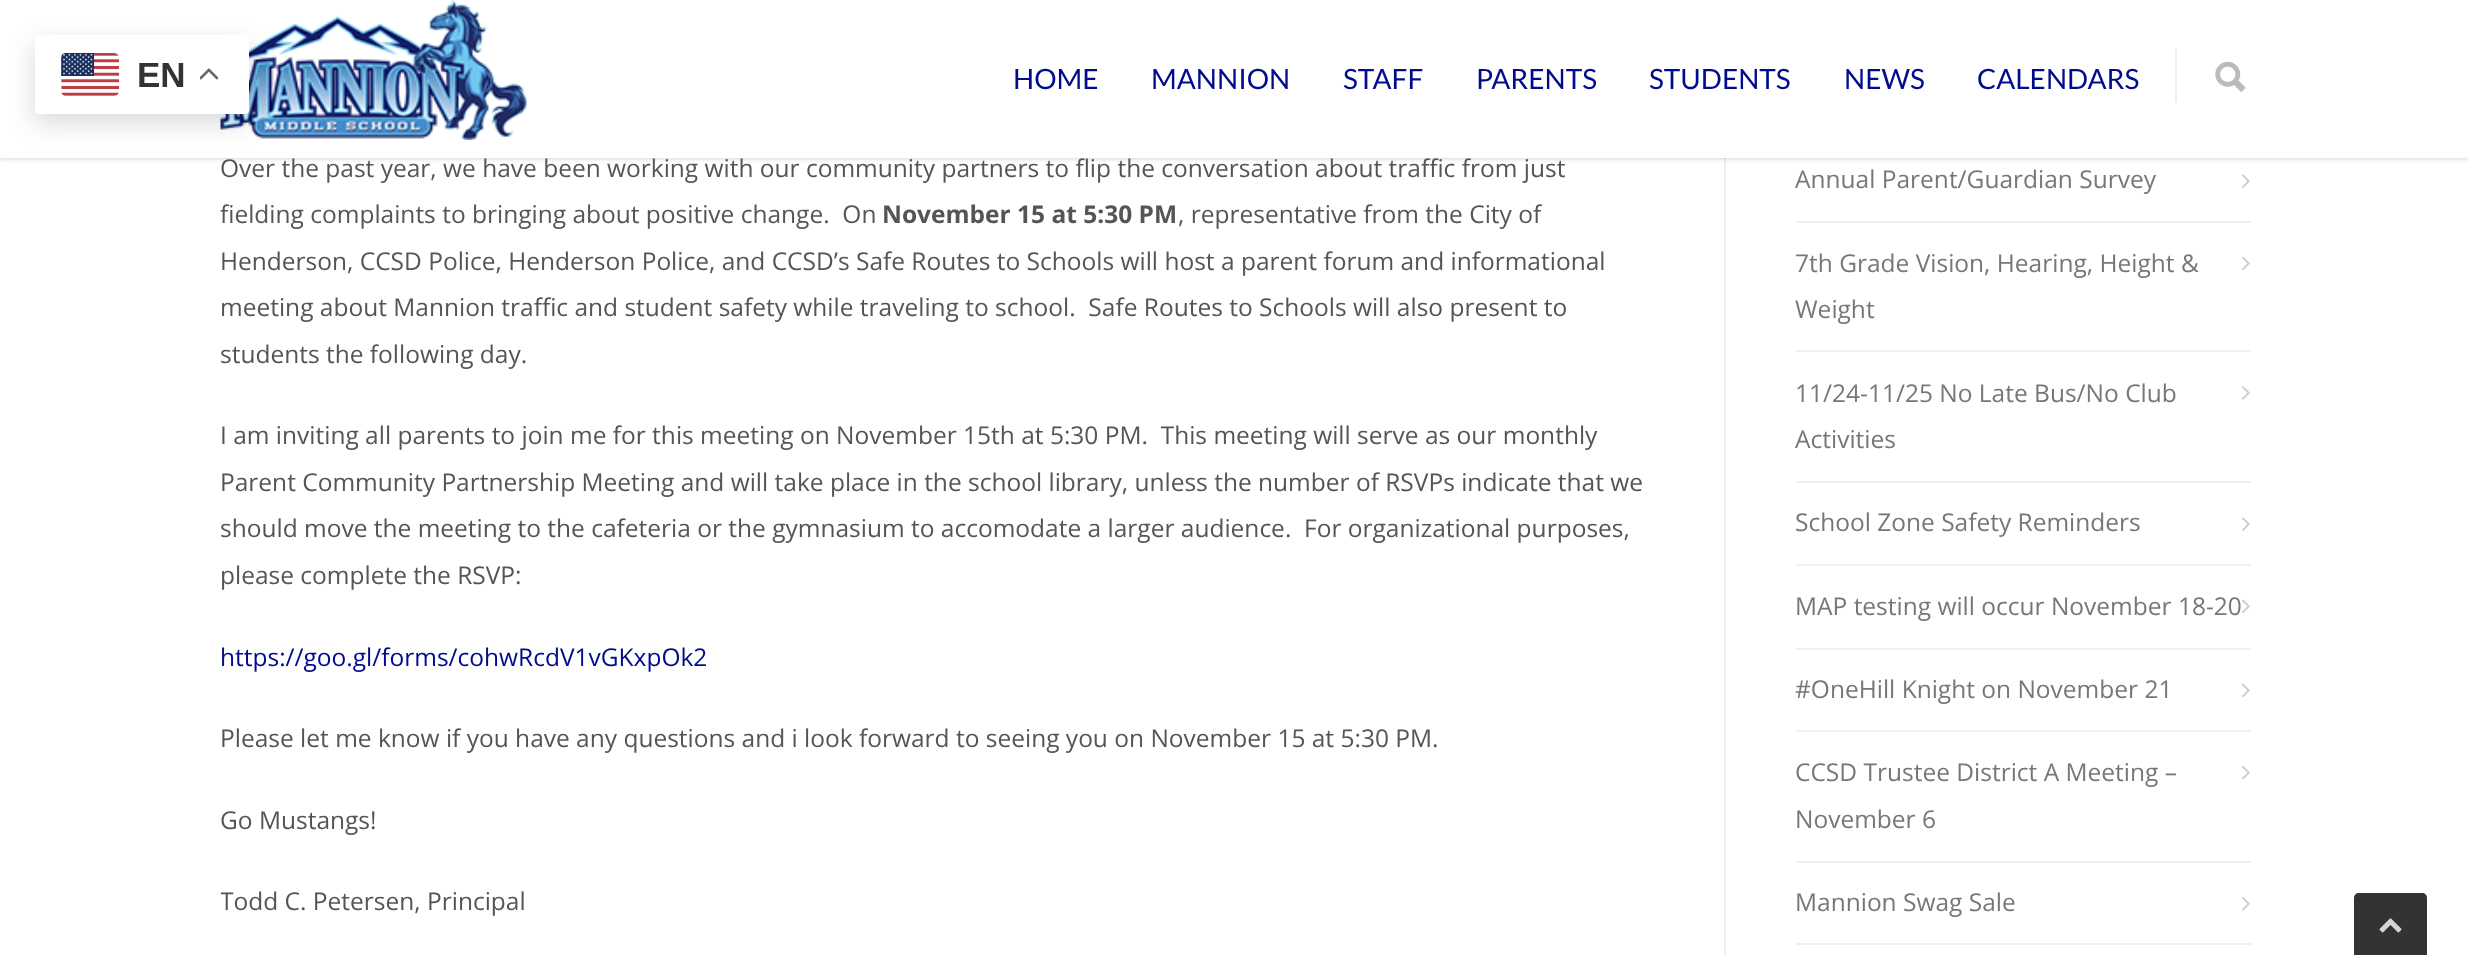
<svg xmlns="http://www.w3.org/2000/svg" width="2468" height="955">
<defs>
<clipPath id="clip1"><rect x="221" width="1433" height="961"/></clipPath>
</defs>
<rect width="100%" height="100%" fill="#fff"/>
<rect x="1724" y="158" width="2" height="797" fill="#efefef"/>
<rect x="-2" y="-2" width="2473" height="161" fill="#00000029" filter="blur(2px)"/>
<rect width="2468" height="158" fill="#fff"/>
<image x="220" y="0" width="307" height="140" href="media/3.png"/>
<rect x="35" y="44" width="214" height="79" rx="4" fill="#00000026" filter="blur(13px)"/>
<rect x="35" y="35" width="214" height="79" rx="4" fill="#fff"/>
<image x="61" y="53" width="58" height="43" href="media/1.png"/>
<text x="137" y="87" style="font-family:Liberation Sans;font-size:35px;font-weight:bold;fill:#333">EN</text>
<image x="200" y="68" width="19" height="12" href="media/2.png"/>
<text x="1013" y="89" style="font-family:Lato;font-size:28px;fill:#000c8d">HOME</text>
<text x="1151" y="89" style="font-family:Lato;font-size:28px;fill:#000c8d">MANNION</text>
<text x="1343" y="89" style="font-family:Lato;font-size:28px;fill:#000c8d">STAFF</text>
<text x="1476" y="89" style="font-family:Lato;font-size:28px;fill:#000c8d">PARENTS</text>
<text x="1649" y="89" style="font-family:Lato;font-size:28px;fill:#000c8d">STUDENTS</text>
<text x="1844" y="89" style="font-family:Lato;font-size:28px;fill:#000c8d">NEWS</text>
<text x="1977" y="89" style="font-family:Lato;font-size:28px;fill:#000c8d">CALENDARS</text>
<rect x="2175" y="49" width="2" height="53" fill="#efefef"/>
<image x="2215" y="61" width="31" height="31" href="media/4.png"/>
<text x="220" y="177" style="font-family:Open Sans;font-size:24.5px;fill:#555">Over the past year, we have been working with our community partners to flip the conversation about traffic from just</text>
<text x="220" y="223" style="font-family:Open Sans;font-size:24.5px;fill:#555" xml:space="preserve">fielding complaints to bringing about positive change.  On</text>
<text x="882" y="223" style="font-family:Open Sans;font-size:24.5px;font-weight:bold;fill:#555">November 15 at 5:30 PM</text>
<text x="1178" y="223" style="font-family:Open Sans;font-size:24.5px;fill:#555">, representative from the City of</text>
<text x="220" y="270" style="font-family:Open Sans;font-size:24.5px;fill:#555">Henderson, CCSD Police, Henderson Police, and CCSD’s Safe Routes to Schools will host a parent forum and informational</text>
<text x="220" y="316" style="font-family:Open Sans;font-size:24.5px;fill:#555" xml:space="preserve">meeting about Mannion traffic and student safety while traveling to school.  Safe Routes to Schools will also present to</text>
<g clip-path="url(#clip1)">
<text x="220" y="363" style="font-family:Open Sans;font-size:24.5px;fill:#555">students the following day.</text>
</g>
<text x="220" y="444" style="font-family:Open Sans;font-size:24.5px;fill:#555" xml:space="preserve">I am inviting all parents to join me for this meeting on November 15th at 5:30 PM.  This meeting will serve as our monthly</text>
<text x="220" y="491" style="font-family:Open Sans;font-size:24.5px;fill:#555">Parent Community Partnership Meeting and will take place in the school library, unless the number of RSVPs indicate that we</text>
<g clip-path="url(#clip1)">
<text x="220" y="537" style="font-family:Open Sans;font-size:24.5px;fill:#555" xml:space="preserve">should move the meeting to the cafeteria or the gymnasium to accomodate a larger audience.  For organizational purposes,</text>
</g>
<text x="220" y="584" style="font-family:Open Sans;font-size:24.5px;fill:#555">please complete the RSVP:</text>
<text x="220" y="666" style="font-family:Open Sans;font-size:24.5px;fill:#000c8d">https://goo.gl/forms/cohwRcdV1vGKxpOk2</text>
<text x="220" y="747" style="font-family:Open Sans;font-size:24.5px;fill:#555">Please let me know if you have any questions and i look forward to seeing you on November 15 at 5:30 PM.</text>
<text x="220" y="829" style="font-family:Open Sans;font-size:24.5px;fill:#555">Go Mustangs!</text>
<g clip-path="url(#clip1)">
<text x="220" y="910" style="font-family:Open Sans;font-size:24.5px;fill:#555">Todd C. Petersen, Principal</text>
</g>
<rect x="1796" y="221" width="455" height="2" fill="#efefef"/>
<text x="1795" y="188" style="font-family:Open Sans;font-size:24.5px;fill:#777">Annual Parent/Guardian Survey</text>
<image x="2242" y="174" width="8" height="14" href="media/5.png"/>
<rect x="1796" y="350" width="455" height="2" fill="#efefef"/>
<text x="1795" y="272" style="font-family:Open Sans;font-size:24.5px;fill:#777">7th Grade Vision, Hearing, Height &amp;</text>
<text x="1795" y="318" style="font-family:Open Sans;font-size:24.5px;fill:#777">Weight</text>
<image x="2242" y="256" width="8" height="14" href="media/6.png"/>
<rect x="1796" y="481" width="455" height="2" fill="#efefef"/>
<text x="1795" y="402" style="font-family:Open Sans;font-size:24.5px;fill:#777">11/24-11/25 No Late Bus/No Club</text>
<text x="1795" y="448" style="font-family:Open Sans;font-size:24.5px;fill:#777">Activities</text>
<image x="2242" y="386" width="8" height="14" href="media/7.png"/>
<rect x="1796" y="564" width="455" height="2" fill="#efefef"/>
<text x="1795" y="531" style="font-family:Open Sans;font-size:24.5px;fill:#777">School Zone Safety Reminders</text>
<image x="2242" y="517" width="8" height="14" href="media/5.png"/>
<rect x="1796" y="648" width="455" height="2" fill="#efefef"/>
<text x="1795" y="615" style="font-family:Open Sans;font-size:24.5px;fill:#777">MAP testing will occur November 18-20</text>
<image x="2242" y="599" width="8" height="14" href="media/6.png"/>
<rect x="1796" y="730" width="455" height="2" fill="#efefef"/>
<text x="1795" y="698" style="font-family:Open Sans;font-size:24.5px;fill:#777">#OneHill Knight on November 21</text>
<image x="2242" y="683" width="8" height="14" href="media/6.png"/>
<rect x="1796" y="861" width="455" height="2" fill="#efefef"/>
<text x="1795" y="781" style="font-family:Open Sans;font-size:24.5px;fill:#777">CCSD Trustee District A Meeting –</text>
<text x="1795" y="828" style="font-family:Open Sans;font-size:24.5px;fill:#777">November 6</text>
<image x="2242" y="766" width="8" height="14" href="media/8.png"/>
<rect x="1796" y="943" width="455" height="2" fill="#efefef"/>
<text x="1795" y="911" style="font-family:Open Sans;font-size:24.5px;fill:#777">Mannion Swag Sale</text>
<image x="2242" y="897" width="8" height="14" href="media/7.png"/>
<path d="M2359 893h63c3 0 5 2 5 5v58h-73v-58c0-3 2-5 5-5z" fill="#333"/>
<image x="2379" y="918" width="23" height="15" href="media/9.png"/>
</svg>
